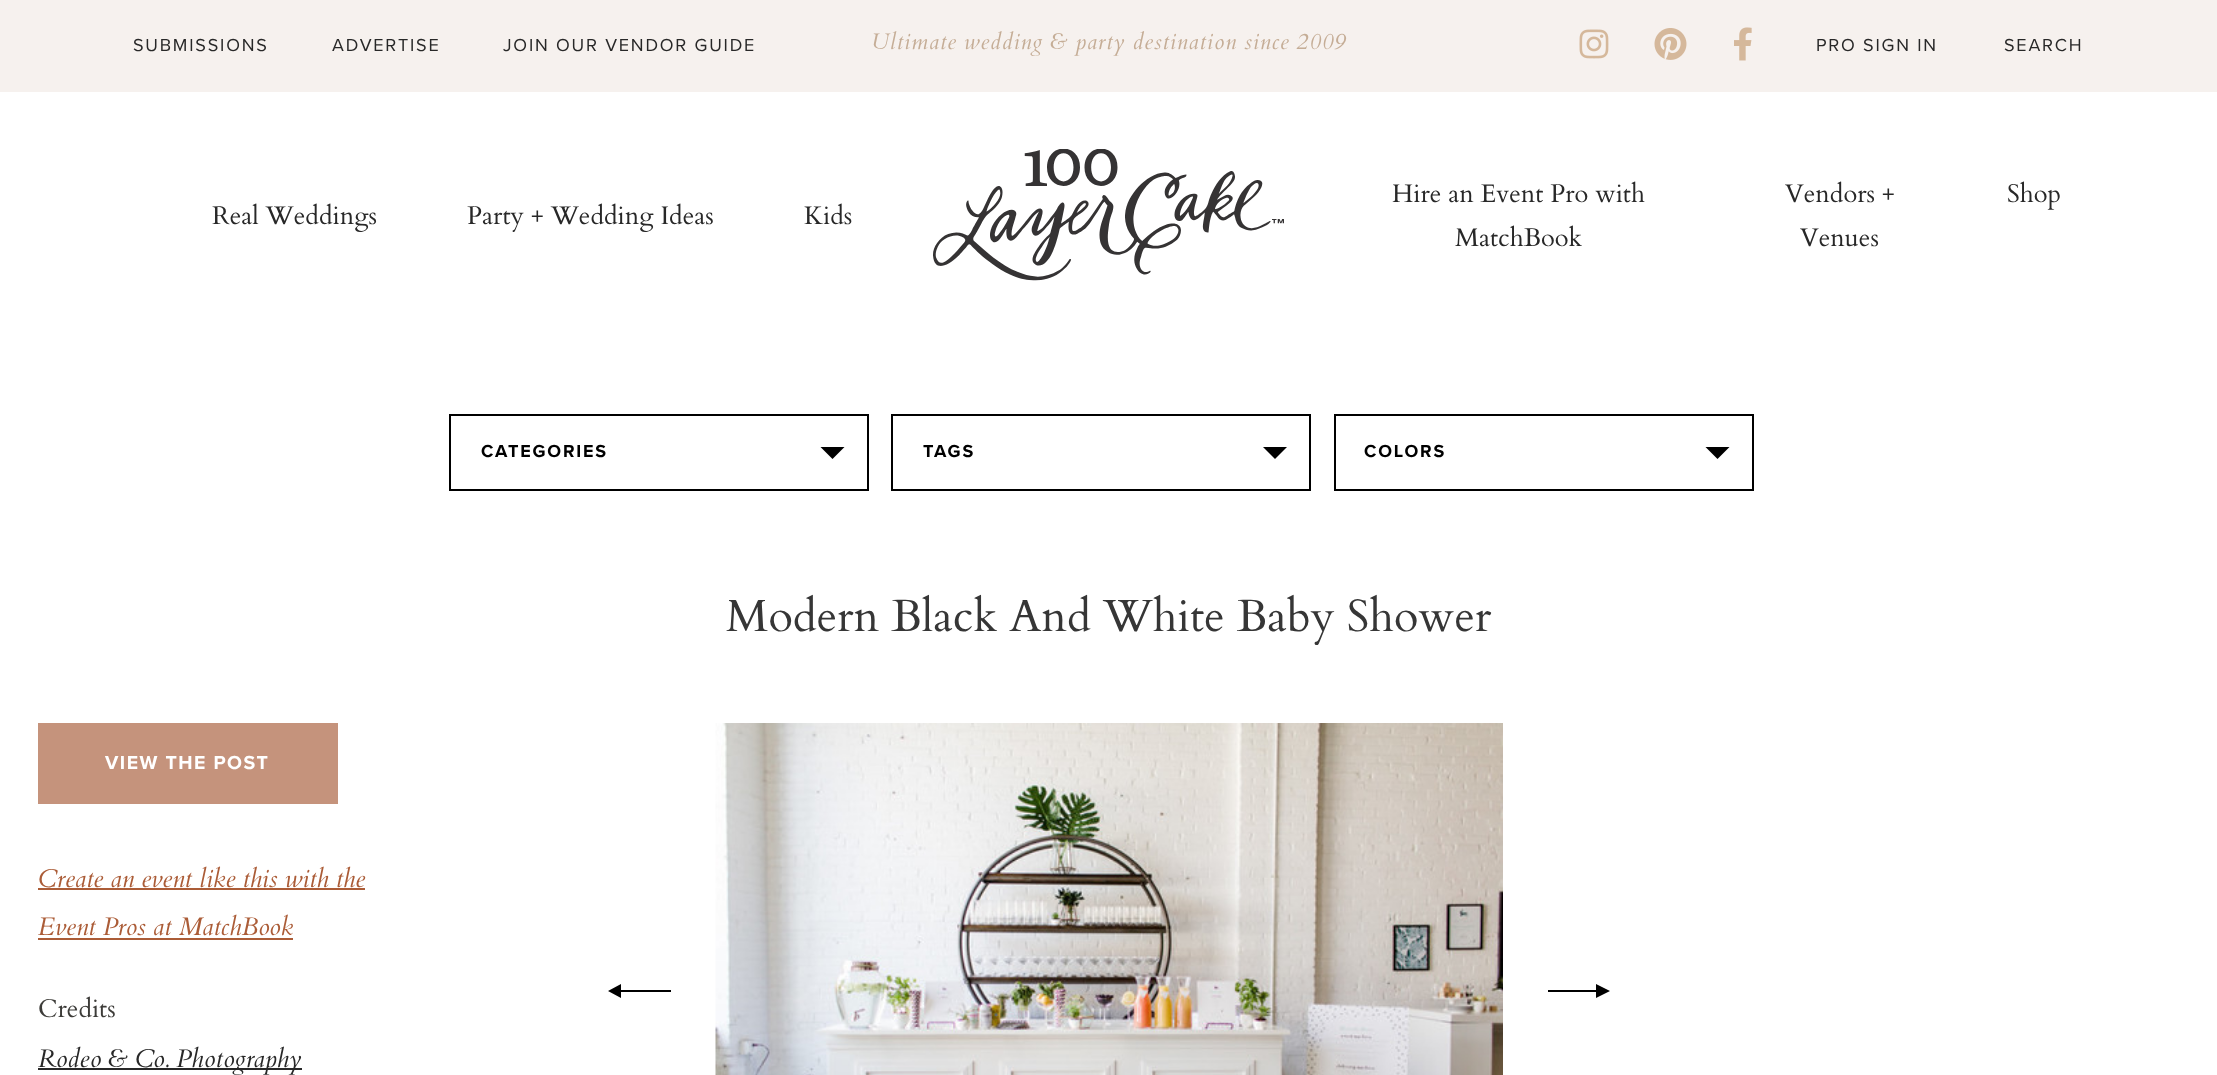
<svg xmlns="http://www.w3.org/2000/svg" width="2217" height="1075">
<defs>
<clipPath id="clip1"><rect x="608" y="984" width="63" height="14"/></clipPath>
<clipPath id="clip2"><rect x="1548" y="984" width="62" height="14"/></clipPath>
</defs>
<rect width="100%" height="100%" fill="#fff"/>
<rect width="2217" height="92" fill="#f6f1ee"/>
<text x="133" y="51" style="font-family:Proxima Nova;font-size:18px;letter-spacing:1.8px;fill:#282828">SUBMISSIONS</text>
<text x="332" y="51" style="font-family:Proxima Nova;font-size:18px;letter-spacing:1.8px;fill:#282828">ADVERTISE</text>
<text x="503" y="51" style="font-family:Proxima Nova;font-size:18px;letter-spacing:1.8px;fill:#282828">JOIN OUR VENDOR GUIDE</text>
<text x="871" y="49" style="font-family:Cardo;font-size:22.5px;font-style:italic;letter-spacing:0.9px;fill:#c5ad96">Ultimate wedding &amp; party destination since 2009</text>
<image x="1579" y="29" width="30" height="30" href="media/1.png"/>
<image x="1654" y="28" width="33" height="32" href="media/2.png"/>
<image x="1734" y="27" width="18" height="34" href="media/3.png"/>
<text x="1816" y="51" style="font-family:Proxima Nova;font-size:18px;letter-spacing:1.8px;fill:#282828">PRO SIGN IN</text>
<text x="2004" y="51" style="font-family:Proxima Nova;font-size:18px;letter-spacing:1.8px;fill:#282828">SEARCH</text>
<text x="212" y="224" style="font-family:Cardo;font-size:25.5px;fill:#282828">Real Weddings</text>
<text x="467" y="224" style="font-family:Cardo;font-size:25.5px;fill:#282828">Party + Wedding Ideas</text>
<text x="804" y="224" style="font-family:Cardo;font-size:25.5px;fill:#282828">Kids</text>
<image x="933" y="149" width="351" height="132" href="media/4.png"/>
<text x="1392" y="202" style="font-family:Cardo;font-size:25.5px;fill:#282828">Hire an Event Pro with</text>
<text x="1455" y="246" style="font-family:Cardo;font-size:25.5px;fill:#282828">MatchBook</text>
<text x="1785" y="202" style="font-family:Cardo;font-size:25.5px;fill:#282828">Vendors +</text>
<text x="1800" y="246" style="font-family:Cardo;font-size:25.5px;fill:#282828">Venues</text>
<text x="2007" y="202" style="font-family:Cardo;font-size:25.5px;fill:#282828">Shop</text>
<rect x="450" y="415" width="418" height="75" fill="none" stroke="#000" stroke-width="2"/>
<text x="481" y="457" style="font-family:Proxima Nova;font-size:18px;font-weight:bold;letter-spacing:1.8px;fill:#000">CATEGORIES</text>
<path d="M820.5 447h24l-12 12z" fill="#000"/>
<rect x="892" y="415" width="418" height="75" fill="none" stroke="#000" stroke-width="2"/>
<text x="923" y="457" style="font-family:Proxima Nova;font-size:18px;font-weight:bold;letter-spacing:1.8px;fill:#000">TAGS</text>
<path d="M1263 447h24l-12 12z" fill="#000"/>
<rect x="1335" y="415" width="418" height="75" fill="none" stroke="#000" stroke-width="2"/>
<text x="1364" y="457" style="font-family:Proxima Nova;font-size:18px;font-weight:bold;letter-spacing:1.8px;fill:#000">COLORS</text>
<path d="M1705.5 447h24l-12 12z" fill="#000"/>
<text x="726" y="631" style="font-family:Cardo;font-size:45px;fill:#363636">Modern Black And White Baby Shower</text>
<rect x="38" y="723" width="300" height="81" fill="#c5937c"/>
<text x="105" y="769" style="font-family:Proxima Nova;font-size:19.5px;font-weight:bold;letter-spacing:1.5px;fill:#fff">VIEW THE POST</text>
<text x="38" y="887" style="font-family:Cardo;font-size:25.5px;font-style:italic;fill:#ab5c37">Create an event like this with the</text>
<rect x="38" y="888" width="327" height="2" fill="#ab5c37"/>
<text x="38" y="935" style="font-family:Cardo;font-size:25.5px;font-style:italic;fill:#ab5c37">Event Pros at MatchBook</text>
<rect x="38" y="938" width="255" height="2" fill="#ab5c37"/>
<text x="38" y="1017" style="font-family:Cardo;font-size:25.5px;fill:#3d3c39">Credits</text>
<rect x="38" y="1068" width="264" height="2" fill="#282828"/>
<text x="38" y="1067" style="font-family:Cardo;font-size:25.5px;font-style:italic;fill:#282828">Rodeo &amp; Co. Photography</text>
<g clip-path="url(#clip1)">
<path d="M621 984v6h78v2h-78v6l-13-7z" fill="#000"/>
</g>
<image x="715" y="723" width="788" height="352" href="media/5.png"/>
<g clip-path="url(#clip2)">
<path d="M1596 984l14 7l-14 7v-6h-78v-2h78z" fill="#000"/>
</g>
</svg>
